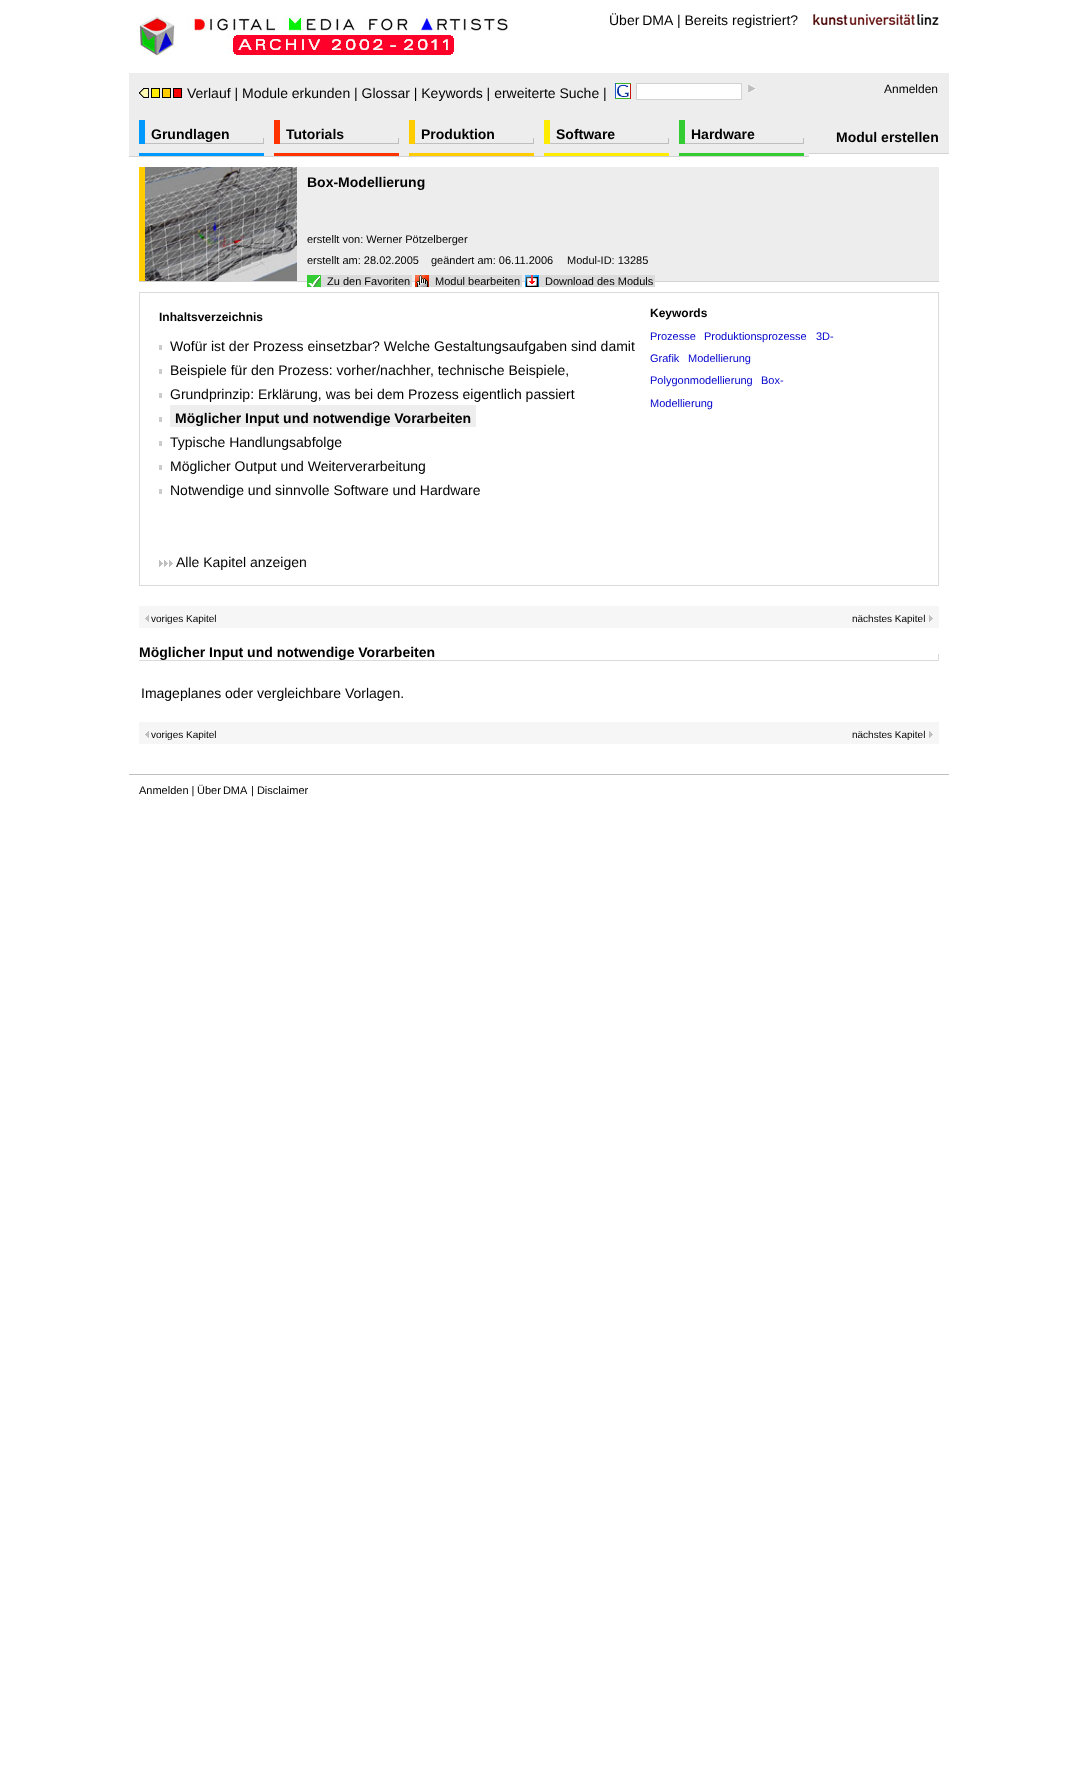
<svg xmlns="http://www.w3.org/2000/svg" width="1077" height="1778">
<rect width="100%" height="100%" fill="#fff"/>
<image x="139" y="15" width="370" height="41" href="media/1.png"/>
<text x="609" y="25" word-spacing="-1" style="font-family:Liberation Sans;font-size:14px;fill:#000">Über DMA</text>
<text x="677" y="25" style="font-family:Liberation Sans;font-size:14px;fill:#000">| Bereits registriert?</text>
<image x="813" y="14" width="126" height="11" href="media/2.png"/>
<rect x="129" y="73" width="680" height="83" fill="#ededed"/>
<image x="139" y="88" width="43" height="10" href="media/3.png"/>
<text x="187" y="98" style="font-family:Liberation Sans;font-size:14px;fill:#000">Verlauf | Module erkunden | Glossar | Keywords | erweiterte Suche |</text>
<image x="615" y="83" width="16" height="16" href="media/4.png"/>
<rect x="636.5" y="83.5" width="105" height="16" fill="#fff" stroke="#d2d2d2"/>
<image x="748" y="84" width="8" height="9" href="media/5.png"/>
<rect x="129" y="156" width="680" height="1" fill="#d2d2d2"/>
<rect x="139" y="120" width="125" height="36" fill="#09f"/>
<image x="139" y="120" width="125" height="33" href="media/6.png"/>
<text x="151" y="139" style="font-family:Liberation Sans;font-size:14px;font-weight:bold;fill:#000">Grundlagen</text>
<rect x="274" y="120" width="125" height="36" fill="#f30"/>
<image x="274" y="120" width="125" height="33" href="media/7.png"/>
<text x="286" y="139" style="font-family:Liberation Sans;font-size:14px;font-weight:bold;fill:#000">Tutorials</text>
<rect x="409" y="120" width="125" height="36" fill="#fc0"/>
<image x="409" y="120" width="125" height="33" href="media/8.png"/>
<text x="421" y="139" style="font-family:Liberation Sans;font-size:14px;font-weight:bold;fill:#000">Produktion</text>
<rect x="544" y="120" width="125" height="36" fill="#ffec00"/>
<image x="544" y="120" width="125" height="33" href="media/9.png"/>
<text x="556" y="139" style="font-family:Liberation Sans;font-size:14px;font-weight:bold;fill:#000">Software</text>
<rect x="679" y="120" width="125" height="36" fill="#3c3"/>
<image x="679" y="120" width="125" height="33" href="media/10.png"/>
<text x="691" y="139" style="font-family:Liberation Sans;font-size:14px;font-weight:bold;fill:#000">Hardware</text>
<rect x="809" y="73" width="140" height="80" fill="#ededed"/>
<rect x="809" y="153" width="140" height="1" fill="#d2d2d2"/>
<text x="884" y="93" style="font-family:Liberation Sans;font-size:12px;fill:#000">Anmelden</text>
<text x="836" y="142" style="font-family:Liberation Sans;font-size:14px;font-weight:bold;fill:#000">Modul erstellen</text>
<rect x="297" y="167" width="642" height="114" fill="#ededed"/>
<rect x="139" y="281" width="800" height="1" fill="#d2d2d2"/>
<rect x="139" y="167" width="6" height="114" fill="#fc0"/>
<image x="145" y="167" width="152" height="114" href="media/11.png"/>
<text x="307" y="187" style="font-family:Liberation Sans;font-size:14px;font-weight:bold;fill:#000">Box-Modellierung</text>
<text x="307" y="243" style="font-family:Liberation Sans;font-size:11px;fill:#000">erstellt von: Werner Pötzelberger</text>
<text x="307" y="264" style="font-family:Liberation Sans;font-size:11px;fill:#000">erstellt am: 28.02.2005</text>
<text x="431" y="264" style="font-family:Liberation Sans;font-size:11px;fill:#000">geändert am: 06.11.2006</text>
<text x="567" y="264" style="font-family:Liberation Sans;font-size:11px;fill:#000">Modul-ID: 13285</text>
<image x="307" y="275" width="14" height="12" href="media/12.png"/>
<rect x="321" y="275" width="91" height="12" fill="#dbdbdb"/>
<text x="327" y="285" style="font-family:Liberation Sans;font-size:11px;fill:#000">Zu den Favoriten</text>
<image x="415" y="275" width="14" height="12" href="media/13.png"/>
<rect x="429" y="275" width="93" height="12" fill="#dbdbdb"/>
<text x="435" y="285" style="font-family:Liberation Sans;font-size:11px;fill:#000">Modul bearbeiten</text>
<image x="525" y="275" width="14" height="12" href="media/14.png"/>
<rect x="539" y="275" width="116" height="12" fill="#dbdbdb"/>
<text x="545" y="285" style="font-family:Liberation Sans;font-size:11px;fill:#000">Download des Moduls</text>
<rect x="139.5" y="292.5" width="799" height="293" fill="none" stroke="#dbdbdb"/>
<text x="159" y="321" style="font-family:Liberation Sans;font-size:12px;font-weight:bold;fill:#000">Inhaltsverzeichnis</text>
<rect x="159" y="345" width="3" height="5" fill="#ccc"/>
<text x="170" y="351" style="font-family:Liberation Sans;font-size:14px;fill:#000">Wofür ist der Prozess einsetzbar? Welche Gestaltungsaufgaben sind damit</text>
<rect x="159" y="369" width="3" height="5" fill="#ccc"/>
<text x="170" y="375" style="font-family:Liberation Sans;font-size:14px;fill:#000">Beispiele für den Prozess: vorher/nachher, technische Beispiele,</text>
<rect x="159" y="393" width="3" height="5" fill="#ccc"/>
<text x="170" y="399" style="font-family:Liberation Sans;font-size:14px;fill:#000">Grundprinzip: Erklärung, was bei dem Prozess eigentlich passiert</text>
<rect x="159" y="417" width="3" height="5" fill="#ccc"/>
<rect x="170" y="405" width="306" height="22" fill="#eee"/>
<text x="175" y="423" style="font-family:Liberation Sans;font-size:14px;font-weight:bold;fill:#000">Möglicher Input und notwendige Vorarbeiten</text>
<rect x="159" y="441" width="3" height="5" fill="#ccc"/>
<text x="170" y="447" style="font-family:Liberation Sans;font-size:14px;fill:#000">Typische Handlungsabfolge</text>
<rect x="159" y="465" width="3" height="5" fill="#ccc"/>
<text x="170" y="471" style="font-family:Liberation Sans;font-size:14px;fill:#000">Möglicher Output und Weiterverarbeitung</text>
<rect x="159" y="489" width="3" height="5" fill="#ccc"/>
<text x="170" y="495" style="font-family:Liberation Sans;font-size:14px;fill:#000">Notwendige und sinnvolle Software und Hardware</text>
<image x="159" y="560" width="14" height="7" href="media/15.png"/>
<text x="176" y="567" style="font-family:Liberation Sans;font-size:14px;fill:#000">Alle Kapitel anzeigen</text>
<text x="650" y="317" style="font-family:Liberation Sans;font-size:12px;font-weight:bold;fill:#000">Keywords</text>
<text x="650" y="340" style="font-family:Liberation Sans;font-size:11px;fill:#00c">Prozesse</text>
<text x="704" y="340" style="font-family:Liberation Sans;font-size:11px;fill:#00c">Produktionsprozesse</text>
<text x="816" y="340" style="font-family:Liberation Sans;font-size:11px;fill:#00c">3D-</text>
<text x="650" y="362" style="font-family:Liberation Sans;font-size:11px;fill:#00c">Grafik</text>
<text x="688" y="362" style="font-family:Liberation Sans;font-size:11px;fill:#00c">Modellierung</text>
<text x="650" y="384" style="font-family:Liberation Sans;font-size:11px;fill:#00c">Polygonmodellierung</text>
<text x="761" y="384" style="font-family:Liberation Sans;font-size:11px;fill:#00c">Box-</text>
<text x="650" y="407" style="font-family:Liberation Sans;font-size:11px;fill:#00c">Modellierung</text>
<rect x="139" y="606" width="800" height="22" fill="#f6f6f6"/>
<image x="145" y="615" width="4" height="7" href="media/16.png"/>
<text x="151" y="622" style="font-family:Liberation Sans;font-size:10px;fill:#000">voriges Kapitel</text>
<text x="852" y="622" style="font-family:Liberation Sans;font-size:10px;fill:#000">nächstes Kapitel</text>
<image x="929" y="615" width="4" height="7" href="media/17.png"/>
<rect x="938" y="654" width="1" height="6" fill="#dbdbdb"/>
<rect x="139" y="660" width="800" height="1" fill="#dbdbdb"/>
<text x="139" y="657" style="font-family:Liberation Sans;font-size:14px;font-weight:bold;fill:#000">Möglicher Input und notwendige Vorarbeiten</text>
<text x="141" y="698" style="font-family:Liberation Sans;font-size:14px;fill:#000">Imageplanes oder vergleichbare Vorlagen.</text>
<rect x="139" y="722" width="800" height="22" fill="#f6f6f6"/>
<image x="145" y="731" width="4" height="7" href="media/16.png"/>
<text x="151" y="738" style="font-family:Liberation Sans;font-size:10px;fill:#000">voriges Kapitel</text>
<text x="852" y="738" style="font-family:Liberation Sans;font-size:10px;fill:#000">nächstes Kapitel</text>
<image x="929" y="731" width="4" height="7" href="media/17.png"/>
<rect x="129" y="774" width="820" height="1" fill="#bfbfbf"/>
<text x="139" y="794" style="font-family:Liberation Sans;font-size:11px;fill:#000">Anmelden |</text>
<text x="197" y="794" word-spacing="-1" style="font-family:Liberation Sans;font-size:11px;fill:#000">Über DMA</text>
<text x="251" y="794" style="font-family:Liberation Sans;font-size:11px;fill:#000">| Disclaimer</text>
</svg>
